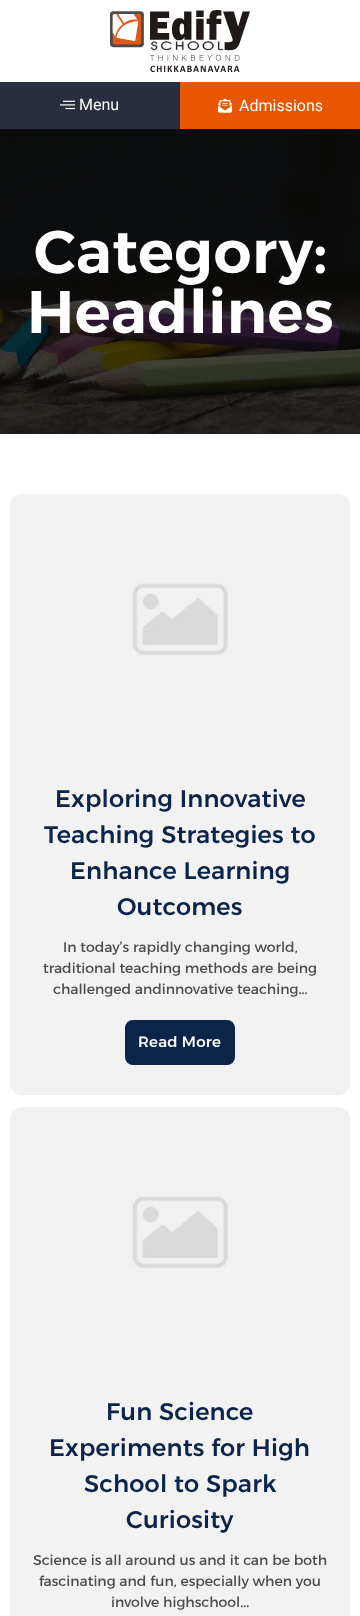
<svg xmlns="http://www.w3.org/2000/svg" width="360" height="1616">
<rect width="100%" height="100%" fill="#fff"/>
<image x="110" y="10" width="140" height="62" href="media/1.png"/>
<rect y="82" width="180" height="47" fill="#282e3f"/>
<image x="60" y="100" width="15" height="10" href="media/2.png"/>
<text x="79" y="110" style="font-family:Roboto;font-size:16px;fill:#fff">Menu</text>
<rect x="180" y="82" width="180" height="47" fill="#e85700"/>
<image x="218" y="98" width="14" height="15" href="media/3.png"/>
<text x="239" y="111" style="font-family:Roboto;font-size:16px;fill:#fff">Admissions</text>
<image x="0" y="129" width="360" height="305" href="media/4.png"/>
<text x="34" y="273" style="font-family:Alexandria;font-size:60px;font-weight:600;letter-spacing:0.5px;fill:#fff">Category:</text>
<text x="27" y="333" style="font-family:Alexandria;font-size:60px;font-weight:600;letter-spacing:0.5px;fill:#fff">Headlines</text>
<rect x="10" y="494" width="340" height="601" rx="12" fill="#f2f2f2"/>
<image x="10" y="497" width="339" height="159" href="media/5.png"/>
<text x="55" y="807" style="font-family:Alexandria;font-size:24px;font-weight:500;letter-spacing:0.2px;fill:#0b2447">Exploring Innovative</text>
<text x="44" y="843" style="font-family:Alexandria;font-size:24px;font-weight:500;letter-spacing:0.2px;fill:#0b2447">Teaching Strategies to</text>
<text x="70" y="879" style="font-family:Alexandria;font-size:24px;font-weight:500;letter-spacing:0.2px;fill:#0b2447">Enhance Learning</text>
<text x="117" y="915" style="font-family:Alexandria;font-size:24px;font-weight:500;letter-spacing:0.2px;fill:#0b2447">Outcomes</text>
<text x="63" y="952" style="font-family:Alexandria;font-size:14px;fill:#4d4d4d">In today’s rapidly changing world,</text>
<text x="43" y="973" style="font-family:Alexandria;font-size:14px;fill:#4d4d4d">traditional teaching methods are being</text>
<text x="53" y="994" style="font-family:Alexandria;font-size:14px;fill:#4d4d4d">challenged andinnovative teaching...</text>
<rect x="126.5" y="1021.5" width="107" height="42" rx="6.5" fill="#0b2447" stroke="#0b2447" stroke-width="3"/>
<text x="138" y="1047" style="font-family:Alexandria;font-size:15px;font-weight:500;letter-spacing:0.2px;fill:#fff">Read More</text>
<rect x="10" y="1107" width="340" height="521" rx="12" fill="#f2f2f2"/>
<image x="10" y="1110" width="339" height="159" href="media/5.png"/>
<text x="106" y="1420" style="font-family:Alexandria;font-size:24px;font-weight:500;letter-spacing:0.2px;fill:#0b2447">Fun Science</text>
<text x="49" y="1456" style="font-family:Alexandria;font-size:24px;font-weight:500;letter-spacing:0.2px;fill:#0b2447">Experiments for High</text>
<text x="84" y="1492" style="font-family:Alexandria;font-size:24px;font-weight:500;letter-spacing:0.2px;fill:#0b2447">School to Spark</text>
<text x="126" y="1528" style="font-family:Alexandria;font-size:24px;font-weight:500;letter-spacing:0.2px;fill:#0b2447">Curiosity</text>
<text x="33" y="1565" style="font-family:Alexandria;font-size:14px;fill:#4d4d4d">Science is all around us and it can be both</text>
<text x="39" y="1586" style="font-family:Alexandria;font-size:14px;fill:#4d4d4d">fascinating and fun, especially when you</text>
<text x="111" y="1607" style="font-family:Alexandria;font-size:14px;fill:#4d4d4d">involve highschool...</text>
</svg>
